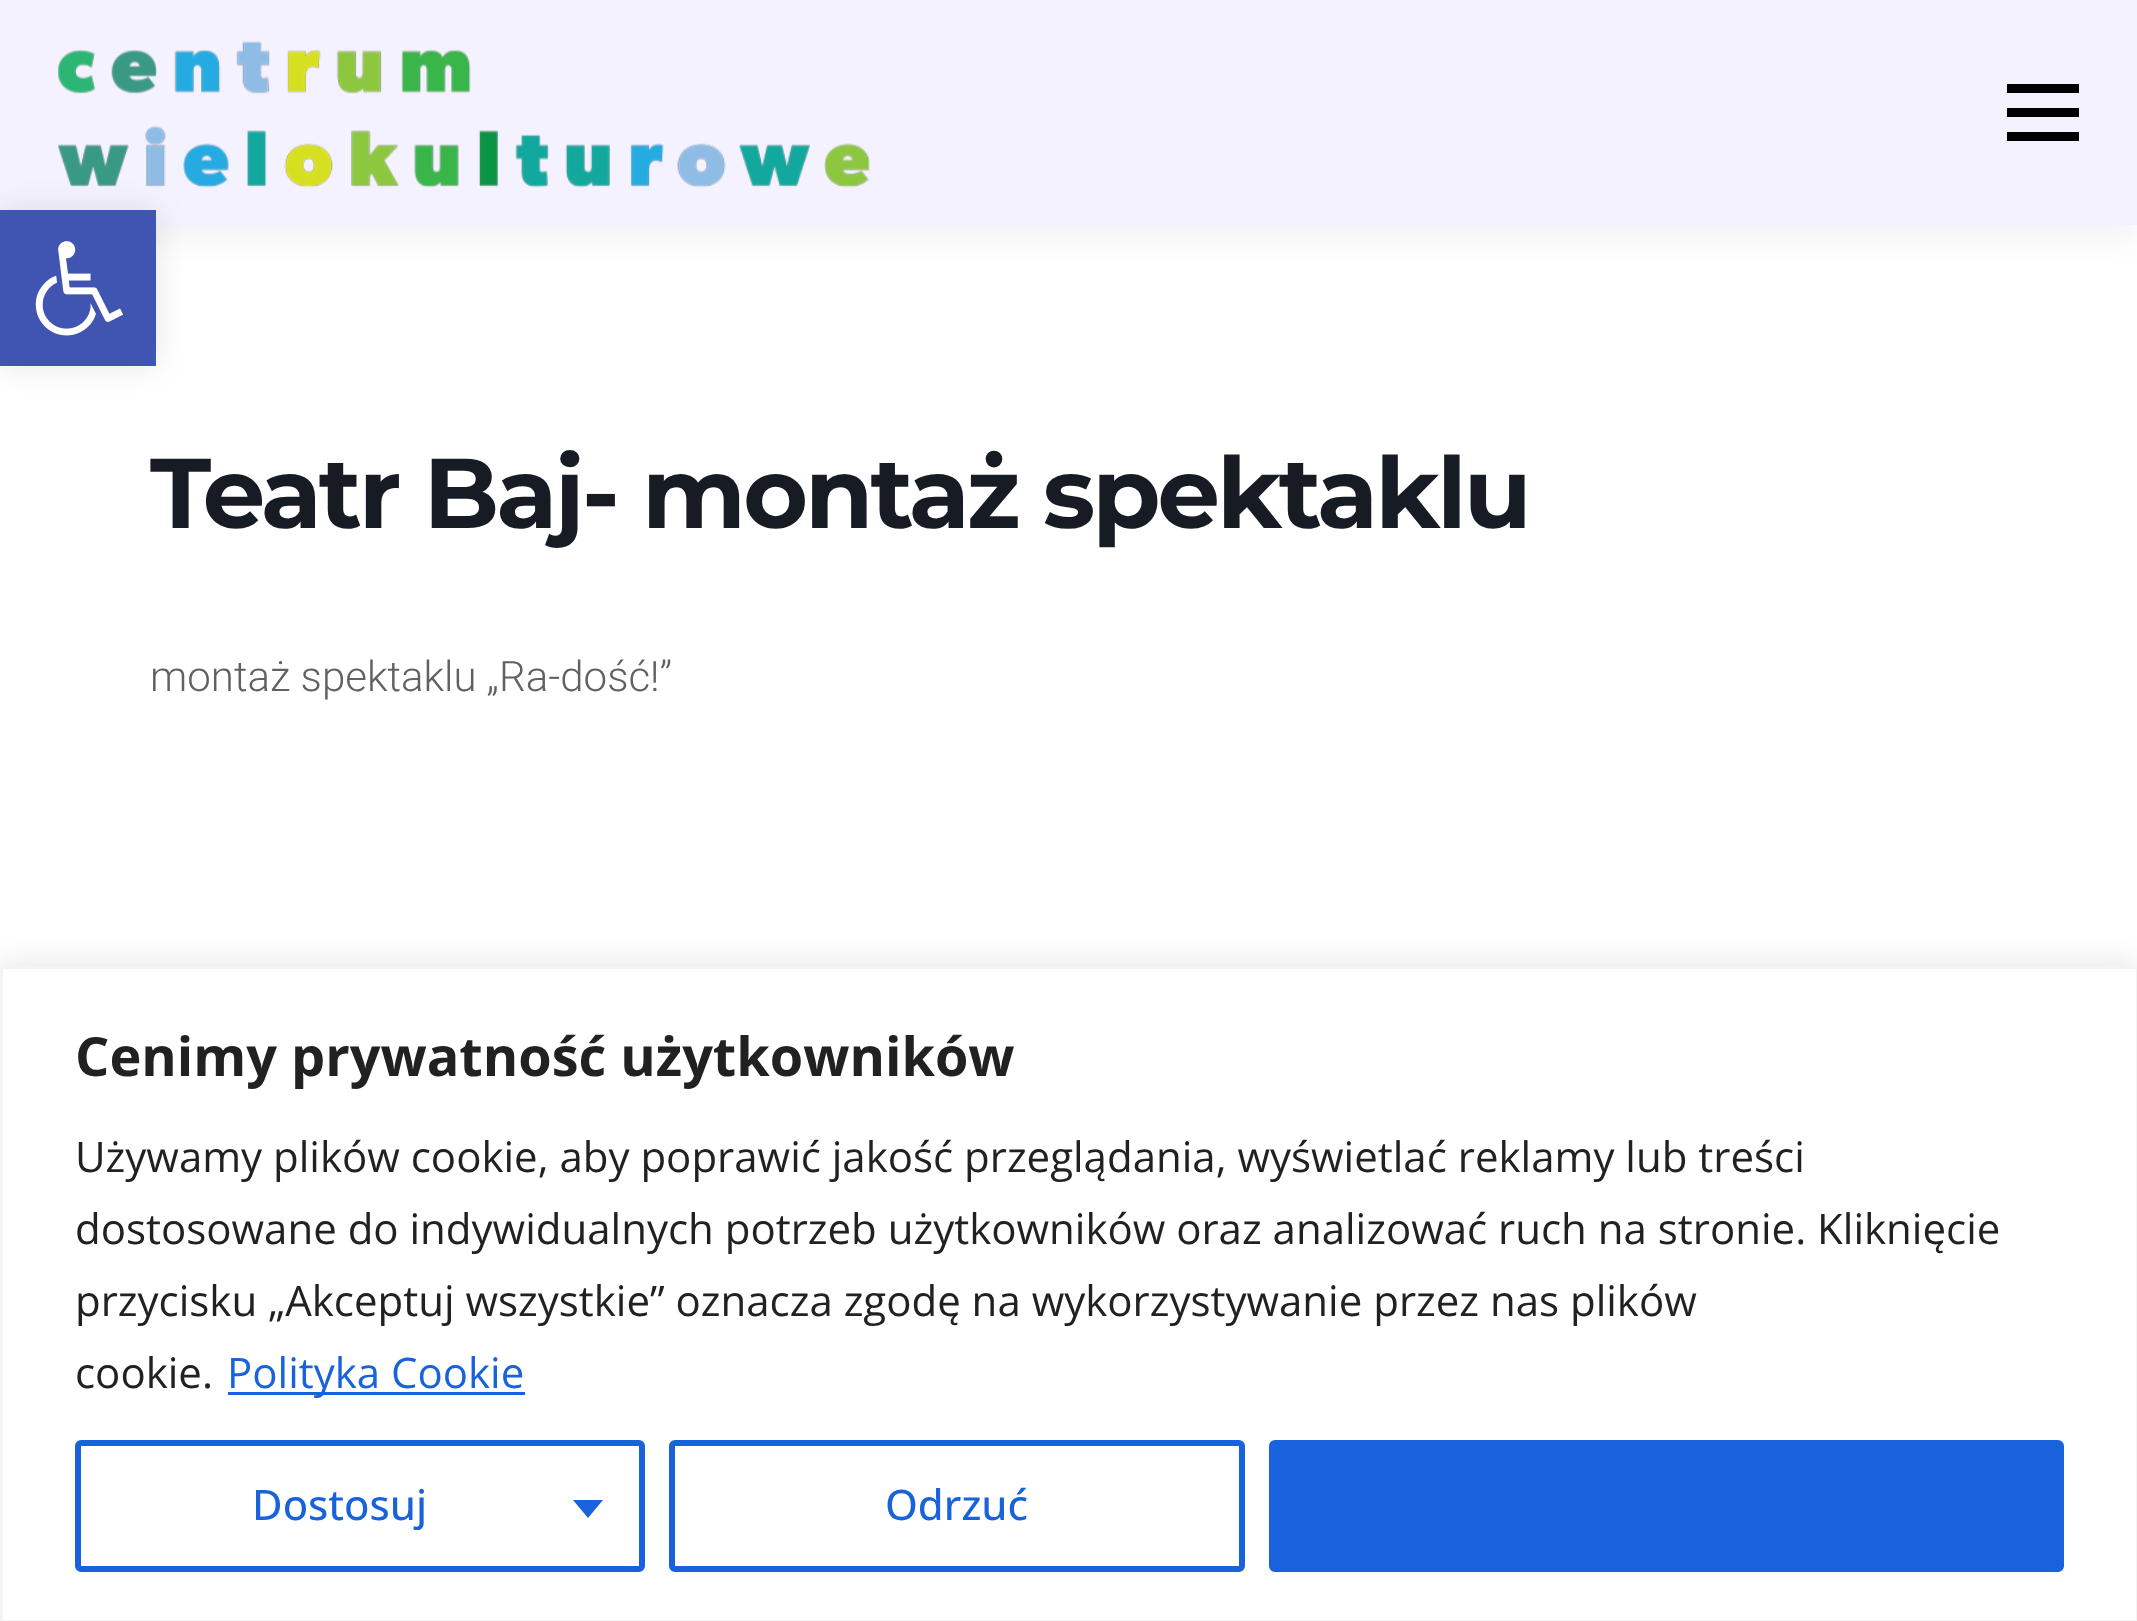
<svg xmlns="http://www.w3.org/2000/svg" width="2137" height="1621">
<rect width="100%" height="100%" fill="#fff"/>
<rect y="15" width="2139" height="225" fill="#3232320f" filter="blur(15px)"/>
<rect width="2137" height="225" fill="#f4f2ff"/>
<image x="58" y="41" width="812" height="147" href="media/2.png"/>
<rect y="210" width="156" height="156" fill="#0000001a" filter="blur(15px)"/>
<rect y="210" width="156" height="156" fill="#4054b2"/>
<image x="35" y="241" width="88" height="95" href="media/1.png"/>
<rect x="2007" y="108" width="72" height="9" fill="#000"/>
<rect x="2007" y="84" width="72" height="9" fill="#000"/>
<rect x="2007" y="132" width="72" height="9" fill="#000"/>
<text x="150" y="528" style="font-family:Montserrat;font-size:99px;font-weight:bold;letter-spacing:-3px;fill:#171c24">Teatr Baj- montaż spektaklu</text>
<text x="150" y="691" style="font-family:Roboto;font-size:42px;font-weight:300;fill:#616161">montaż spektaklu „Ra-dość!”</text>
<rect y="963" width="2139" height="657" fill="#acabab4d" filter="blur(15px)"/>
<rect x="1.5" y="967.5" width="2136" height="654" fill="#fff" stroke="#f4f4f4" stroke-width="3"/>
<text x="75" y="1076" style="font-family:Open Sans;font-size:54px;font-weight:bold;fill:#212121">Cenimy prywatność użytkowników</text>
<text x="75" y="1172" style="font-family:Open Sans;font-size:42px;fill:#212121">Używamy plików cookie, aby poprawić jakość przeglądania, wyświetlać reklamy lub treści</text>
<text x="75" y="1244" style="font-family:Open Sans;font-size:42px;fill:#212121">dostosowane do indywidualnych potrzeb użytkowników oraz analizować ruch na stronie. Kliknięcie</text>
<text x="75" y="1316" style="font-family:Open Sans;font-size:42px;fill:#212121">przycisku „Akceptuj wszystkie” oznacza zgodę na wykorzystywanie przez nas plików</text>
<text x="75" y="1388" style="font-family:Open Sans;font-size:42px;fill:#212121">cookie.</text>
<rect x="228" y="1392" width="297" height="3" fill="#1863dc"/>
<text x="227" y="1388" style="font-family:Open Sans;font-size:42px;fill:#1863dc">Polityka Cookie</text>
<rect x="78" y="1443" width="564" height="126" rx="3" fill="none" stroke="#1863dc" stroke-width="6"/>
<text x="252" y="1520" style="font-family:Open Sans;font-size:42px;font-weight:500;fill:#1863dc">Dostosuj</text>
<path d="M573 1500h30l-15 18z" fill="#1863dc"/>
<rect x="672" y="1443" width="570" height="126" rx="3" fill="none" stroke="#1863dc" stroke-width="6"/>
<text x="885" y="1520" style="font-family:Open Sans;font-size:42px;font-weight:500;fill:#1863dc">Odrzuć</text>
<rect x="1272" y="1443" width="789" height="126" rx="3" fill="#1863dc" stroke="#1863dc" stroke-width="6"/>
</svg>
